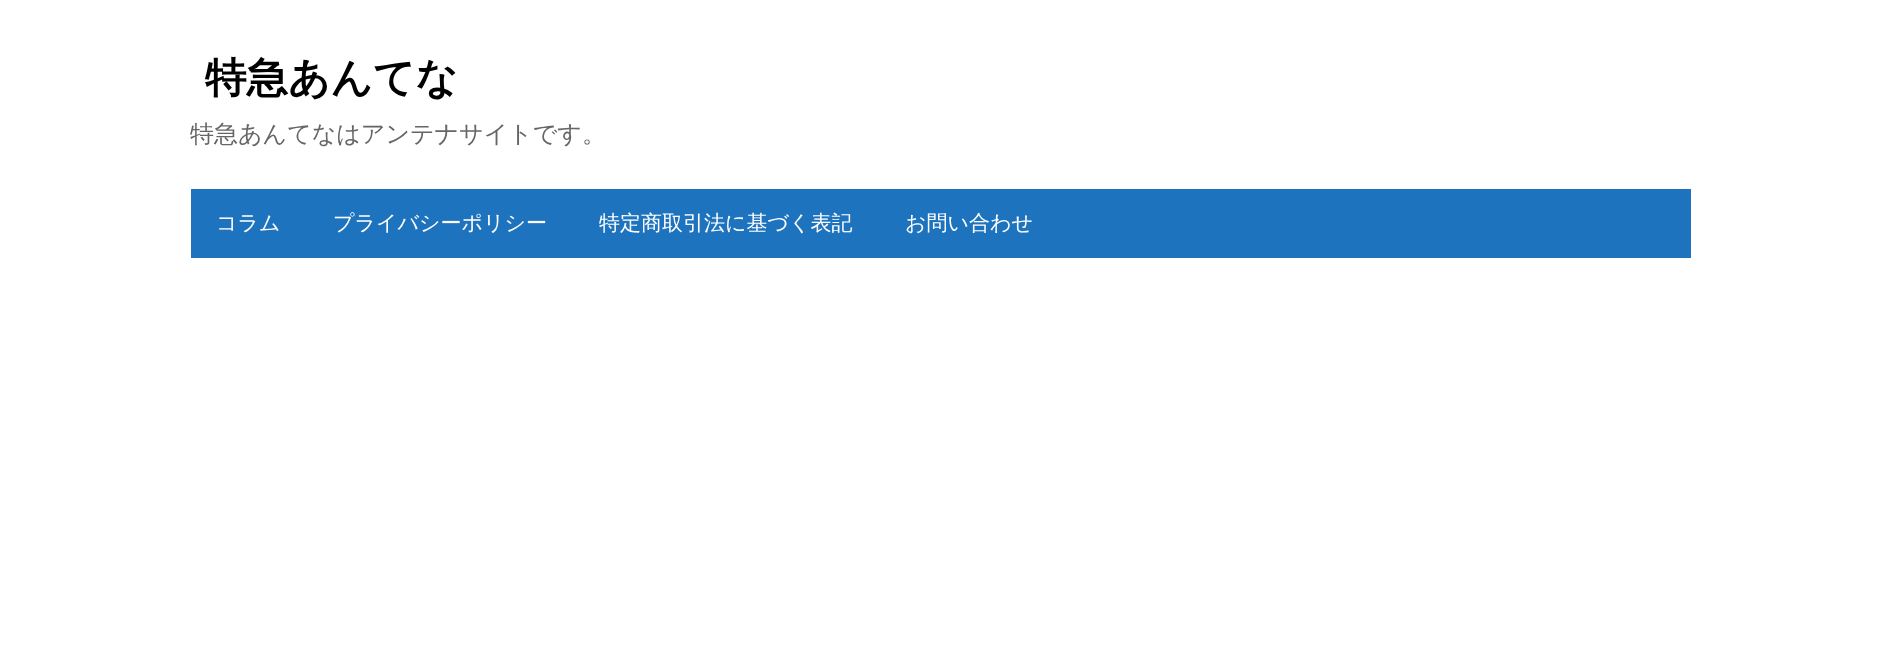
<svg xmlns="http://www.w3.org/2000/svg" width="1879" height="659">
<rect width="100%" height="100%" fill="#fff"/>
<text x="205" y="92" style="font-family:WenQuanYi Zen Hei;font-size:41.5px;font-weight:bold;fill:#000">特急あんてな</text>
<text x="190" y="142" style="font-family:WenQuanYi Zen Hei;font-size:24px;font-weight:500;fill:#666">特急あんてなはアンテナサイトです。</text>
<rect x="191" y="189" width="1500" height="69" fill="#1e73be"/>
<text x="216" y="230" style="font-family:WenQuanYi Zen Hei;font-size:21px;font-weight:500;fill:#fff">コラム</text>
<text x="333" y="230" style="font-family:WenQuanYi Zen Hei;font-size:21px;font-weight:500;fill:#fff">プライバシーポリシー</text>
<text x="599" y="230" style="font-family:WenQuanYi Zen Hei;font-size:21px;font-weight:500;fill:#fff">特定商取引法に基づく表記</text>
<text x="905" y="230" style="font-family:WenQuanYi Zen Hei;font-size:21px;font-weight:500;fill:#fff">お問い合わせ</text>
</svg>
